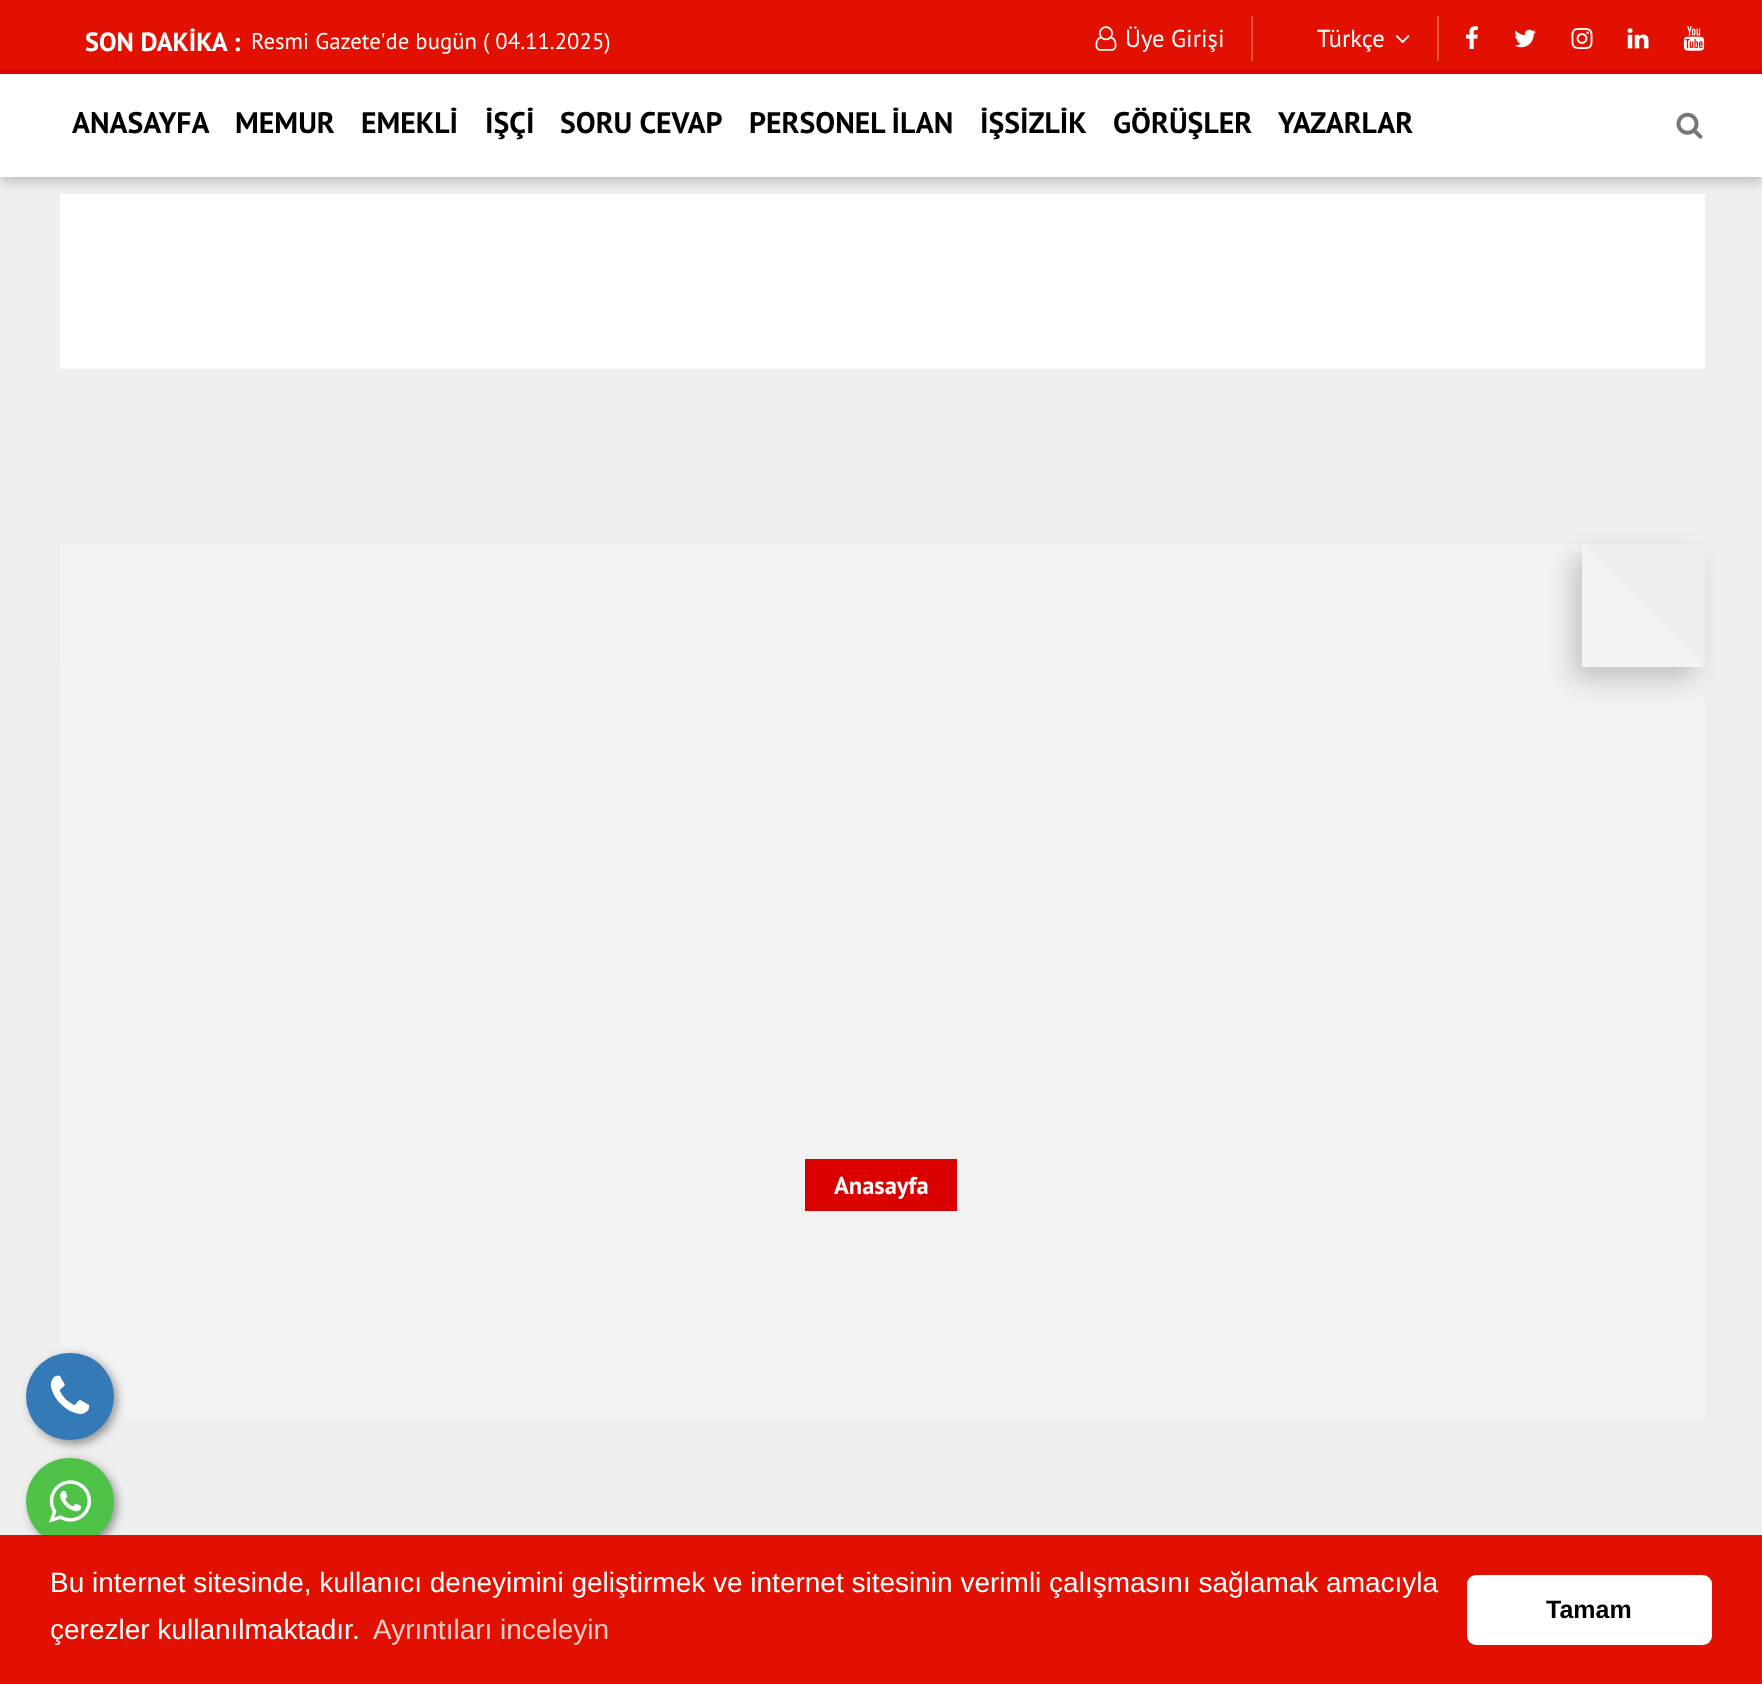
<svg xmlns="http://www.w3.org/2000/svg" width="1762" height="1684">
<defs>
<clipPath id="clip1"><path d="M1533 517h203v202h-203zm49 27h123v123h-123z" clip-rule="evenodd"/></clipPath>
</defs>
<rect width="100%" height="100%" fill="#efefef"/>
<rect width="1762" height="70" fill="#e21000"/>
<text x="85" y="51" style="font-family:PT Sans;font-size:26.25px;font-weight:bold;fill:#fff">SON DAKİKA :</text>
<text x="251" y="49" style="font-family:PT Sans;font-size:22.75px;fill:#fff">Resmi Gazete'de bugün ( 04.11.2025)</text>
<image x="1095" y="26" width="22" height="25" href="media/1.png"/>
<text x="1125" y="47" style="font-family:PT Sans;font-size:24.5px;fill:#fff">Üye Girişi</text>
<rect x="1251" y="16" width="2" height="45" fill="#ea5145"/>
<text x="1317" y="47" style="font-family:PT Sans;font-size:24.5px;fill:#fff">Türkçe</text>
<image x="1395" y="35" width="15" height="9" href="media/2.png"/>
<rect x="1437" y="16" width="2" height="45" fill="#ea5145"/>
<image x="1466" y="26" width="12" height="23" href="media/3.png"/>
<image x="1514" y="29" width="22" height="19" href="media/4.png"/>
<image x="1571" y="28" width="22" height="21" href="media/5.png"/>
<image x="1627" y="28" width="22" height="21" href="media/6.png"/>
<image x="1683" y="26" width="22" height="25" href="media/7.png"/>
<rect x="60" y="194" width="1645" height="175" fill="#fff"/>
<rect y="75" width="1762" height="107" fill="#00000033" filter="blur(6px)"/>
<rect y="74" width="1762" height="103" fill="#fff"/>
<rect y="70" width="1762" height="4" fill="#da0000"/>
<text x="72" y="133" style="font-family:PT Sans;font-size:29.75px;font-weight:bold;fill:#000">ANASAYFA</text>
<text x="235" y="133" style="font-family:PT Sans;font-size:29.75px;font-weight:bold;fill:#000">MEMUR</text>
<text x="361" y="133" style="font-family:PT Sans;font-size:29.75px;font-weight:bold;fill:#000">EMEKLİ</text>
<text x="485" y="133" style="font-family:PT Sans;font-size:29.75px;font-weight:bold;fill:#000">İŞÇİ</text>
<text x="560" y="133" style="font-family:PT Sans;font-size:29.75px;font-weight:bold;fill:#000">SORU CEVAP</text>
<text x="749" y="133" style="font-family:PT Sans;font-size:29.75px;font-weight:bold;fill:#000">PERSONEL İLAN</text>
<text x="980" y="133" style="font-family:PT Sans;font-size:29.75px;font-weight:bold;fill:#000">İŞSİZLİK</text>
<text x="1113" y="133" style="font-family:PT Sans;font-size:29.75px;font-weight:bold;fill:#000">GÖRÜŞLER</text>
<text x="1278" y="133" style="font-family:PT Sans;font-size:29.75px;font-weight:bold;fill:#000">YAZARLAR</text>
<image x="1676" y="112" width="27" height="27" href="media/8.png"/>
<rect x="60" y="667" width="1645" height="754" fill="#f2f2f2"/>
<rect x="60" y="544" width="1522" height="123" fill="#f3f3f3"/>
<g clip-path="url(#clip1)">
<rect x="1573" y="557" width="123" height="122" fill="#00000033" filter="blur(13px)"/>
</g>
<path d="M1704 667h-122l61-61z" fill="#ffffff47"/>
<path d="M1582 667v-123l61 62z" fill="#ffffff47"/>
<rect x="805" y="1159" width="152" height="52" fill="#da0000"/>
<text x="834" y="1194" style="font-family:PT Sans;font-size:24.5px;font-weight:bold;fill:#fff">Anasayfa</text>
<rect x="30" y="1356" width="87" height="88" rx="43.5" fill="#00000066" filter="blur(5px)"/>
<rect x="26" y="1353" width="88" height="87" rx="43.5" fill="#337ab7"/>
<image x="50" y="1375" width="40" height="39" href="media/9.png"/>
<rect x="30" y="1461" width="87" height="88" rx="43.5" fill="#00000066" filter="blur(5px)"/>
<rect x="26" y="1458" width="88" height="87" rx="43.5" fill="#4dc247"/>
<image x="49" y="1480" width="42" height="43" href="media/10.png"/>
<rect y="1535" width="1762" height="149" fill="#e21000"/>
<text x="50" y="1592" style="font-family:Liberation Sans;font-size:28px;fill:#fff">Bu internet sitesinde, kullanıcı deneyimini geliştirmek ve internet sitesinin verimli çalışmasını sağlamak amacıyla</text>
<text x="50" y="1639" style="font-family:Liberation Sans;font-size:28px;fill:#fff">çerezler kullanılmaktadır.</text>
<text x="373" y="1639" style="font-family:Liberation Sans;font-size:28px;fill:#f9cfcc">Ayrıntıları inceleyin</text>
<rect x="1467" y="1575" width="245" height="70" rx="9" fill="#fff"/>
<text x="1546" y="1618" style="font-family:Liberation Sans;font-size:25px;font-weight:bold;fill:#000">Tamam</text>
</svg>
